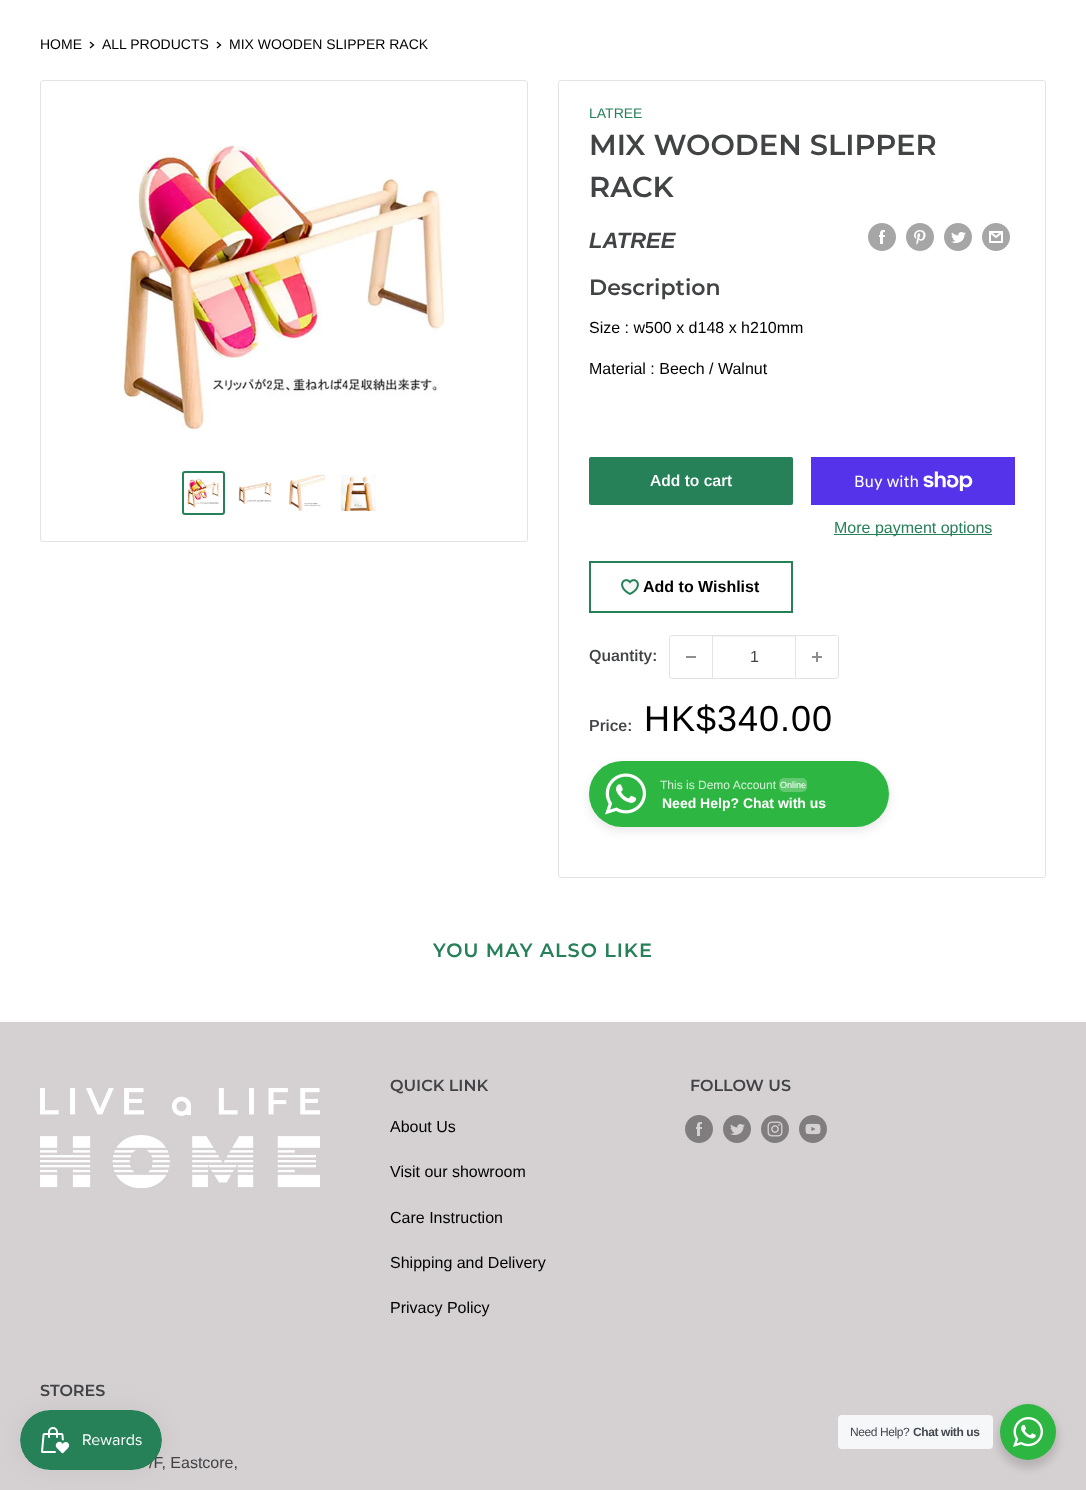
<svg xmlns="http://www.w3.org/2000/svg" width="1086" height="1490">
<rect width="100%" height="100%" fill="#fff"/>
<text x="40" y="49" style="font-family:Arimo;font-size:14px;fill:#000">HOME</text>
<path d="M90.5 42.5l3 2.5l-3 2.5" fill="none" stroke="#000" stroke-width="1.3" stroke-linecap="square"/>
<text x="102" y="49" style="font-family:Arimo;font-size:14px;fill:#000">ALL PRODUCTS</text>
<path d="M217.5 42.5l3 2.5l-3 2.5" fill="none" stroke="#000" stroke-width="1.3" stroke-linecap="square"/>
<text x="229" y="49" style="font-family:Arimo;font-size:14px;fill:#000">MIX WOODEN SLIPPER RACK</text>
<rect x="40.5" y="80.5" width="487" height="461" rx="2.5" fill="none" stroke="#e1e3e4"/>
<image x="122" y="145" width="324" height="287" href="media/1.png"/>
<rect x="183" y="472" width="41" height="42" rx="2" fill="none" stroke="#268159" stroke-width="2"/>
<image x="187" y="478" width="33" height="30" href="media/2.png"/>
<image x="238" y="481" width="34" height="24" href="media/3.png"/>
<image x="289" y="475" width="36" height="36" href="media/4.png"/>
<image x="341" y="475" width="35" height="36" href="media/5.png"/>
<rect x="558.5" y="80.5" width="487" height="797" rx="2.5" fill="none" stroke="#e1e3e4"/>
<text x="589" y="118" style="font-family:Arimo;font-size:14px;fill:#268159">LATREE</text>
<text x="589" y="155" style="font-family:Montserrat;font-size:29px;font-weight:600;fill:#414345">MIX WOODEN SLIPPER</text>
<text x="589" y="197" style="font-family:Montserrat;font-size:29px;font-weight:600;fill:#414345">RACK</text>
<image x="868" y="223" width="28" height="28" href="media/6.png"/>
<image x="906" y="223" width="28" height="28" href="media/7.png"/>
<image x="944" y="223" width="28" height="28" href="media/8.png"/>
<image x="982" y="223" width="28" height="28" href="media/9.png"/>
<text x="589" y="248" style="font-family:Arimo;font-size:22px;font-weight:bold;font-style:italic;fill:#414345">LATREE</text>
<text x="589" y="295" style="font-family:Montserrat;font-size:22px;font-weight:600;fill:#414345">Description</text>
<text x="589" y="333" style="font-family:Arimo;font-size:16px;fill:#000">Size : w500 x d148 x h210mm</text>
<text x="589" y="374" style="font-family:Arimo;font-size:16px;fill:#000">Material : Beech / Walnut</text>
<rect x="589" y="457" width="204" height="48" rx="2" fill="#268159"/>
<text x="650" y="486" style="font-family:Arimo;font-size:16px;font-weight:600;fill:#fff">Add to cart</text>
<rect x="811" y="457" width="204" height="48" fill="#5433eb"/>
<text x="854" y="487" style="font-family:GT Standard;font-size:16px;fill:#fff">Buy with</text>
<image x="923" y="471" width="50" height="20" href="media/10.png"/>
<rect x="834" y="534" width="158" height="1" fill="#268159"/>
<text x="834" y="533" style="font-family:Arimo;font-size:16px;fill:#268159">More payment options</text>
<rect x="590" y="562" width="202" height="50" fill="none" stroke="#268159" stroke-width="2"/>
<image x="621" y="579" width="18" height="16" href="media/11.png"/>
<text x="643" y="592" style="font-family:Arimo;font-size:16px;font-weight:bold;fill:#000">Add to Wishlist</text>
<text x="589" y="661" style="font-family:Arimo;font-size:16px;font-weight:600;fill:#414345">Quantity:</text>
<rect x="669.5" y="635.5" width="169" height="43" rx="2.5" fill="none" stroke="#e1e3e4"/>
<rect x="686" y="656" width="10" height="2" fill="#8d8e8f"/>
<rect x="713" y="636" width="82" height="1" fill="#f3f4f4"/>
<rect x="795" y="636" width="1" height="42" fill="#e1e3e4"/>
<rect x="712" y="636" width="1" height="42" fill="#e1e3e4"/>
<text x="750" y="662" style="font-family:Arimo;font-size:16px;fill:#414345">1</text>
<image x="812" y="652" width="10" height="10" href="media/12.png"/>
<text x="589" y="731" style="font-family:Arimo;font-size:16px;font-weight:600;fill:#414345">Price:</text>
<text x="644" y="731" style="font-family:Arimo;font-size:36px;letter-spacing:1px;fill:#000">HK$340.00</text>
<rect x="588" y="764" width="302" height="68" rx="34" fill="#20202517" filter="blur(4px)"/>
<rect x="589" y="761" width="300" height="66" rx="33" fill="#2db742"/>
<image x="605" y="773" width="41" height="42" href="media/13.png"/>
<text x="660" y="789" style="font-family:Liberation Sans;font-size:12px;fill:#d5f0d9">This is Demo Account</text>
<rect x="779" y="778" width="28" height="14" rx="5" fill="#62c971"/>
<text x="780" y="788" style="font-family:Liberation Sans;font-size:9px;fill:#fff">Online</text>
<text x="662" y="808" style="font-family:Liberation Sans;font-size:14px;font-weight:bold;fill:#fff">Need Help? Chat with us</text>
<text x="433" y="957" style="font-family:Montserrat;font-size:19.25px;font-weight:600;letter-spacing:1px;fill:#268159">YOU MAY ALSO LIKE</text>
<rect y="1022" width="1086" height="468" fill="#d5d0d2"/>
<text x="390" y="1091" style="font-family:Montserrat;font-size:16px;font-weight:600;fill:#414345">QUICK LINK</text>
<text x="390" y="1132" style="font-family:Arimo;font-size:16px;fill:#000">About Us</text>
<text x="390" y="1177" style="font-family:Arimo;font-size:16px;fill:#000">Visit our showroom</text>
<text x="390" y="1223" style="font-family:Arimo;font-size:16px;fill:#000">Care Instruction</text>
<text x="390" y="1268" style="font-family:Arimo;font-size:16px;fill:#000">Shipping and Delivery</text>
<text x="390" y="1313" style="font-family:Arimo;font-size:16px;fill:#000">Privacy Policy</text>
<text x="690" y="1091" style="font-family:Montserrat;font-size:16px;font-weight:600;fill:#414345">FOLLOW US</text>
<image x="685" y="1115" width="28" height="28" href="media/14.png"/>
<image x="723" y="1115" width="28" height="28" href="media/15.png"/>
<image x="761" y="1115" width="28" height="28" href="media/16.png"/>
<image x="799" y="1115" width="28" height="28" href="media/17.png"/>
<image x="40" y="1088" width="280" height="100" href="media/18.png"/>
<text x="40" y="1396" style="font-family:Montserrat;font-size:16px;font-weight:600;fill:#414345">STORES</text>
<text x="149" y="1468" style="font-family:Arimo;font-size:16px;fill:#414345">/F, Eastcore,</text>
<rect x="20" y="1410" width="142" height="60" rx="30" fill="#0000000d" filter="blur(12.5px)"/>
<image x="20" y="1410" width="142" height="60" href="media/19.png"/>
<rect x="998" y="1408" width="60" height="60" rx="30" fill="#00000024" filter="blur(4px)"/>
<rect x="838" y="1415" width="155" height="34" rx="4" fill="#f5f7f9"/>
<text x="850" y="1436" style="font-family:Liberation Sans;font-size:12px;letter-spacing:-0.4px;fill:#43474e">Need Help?</text>
<text x="913" y="1436" style="font-family:Liberation Sans;font-size:12px;font-weight:bold;letter-spacing:-0.4px;fill:#43474e">Chat with us</text>
<circle cx="1028" cy="1432" r="28" fill="#2db742"/>
<image x="1013" y="1417" width="30" height="30" href="media/20.png"/>
</svg>
